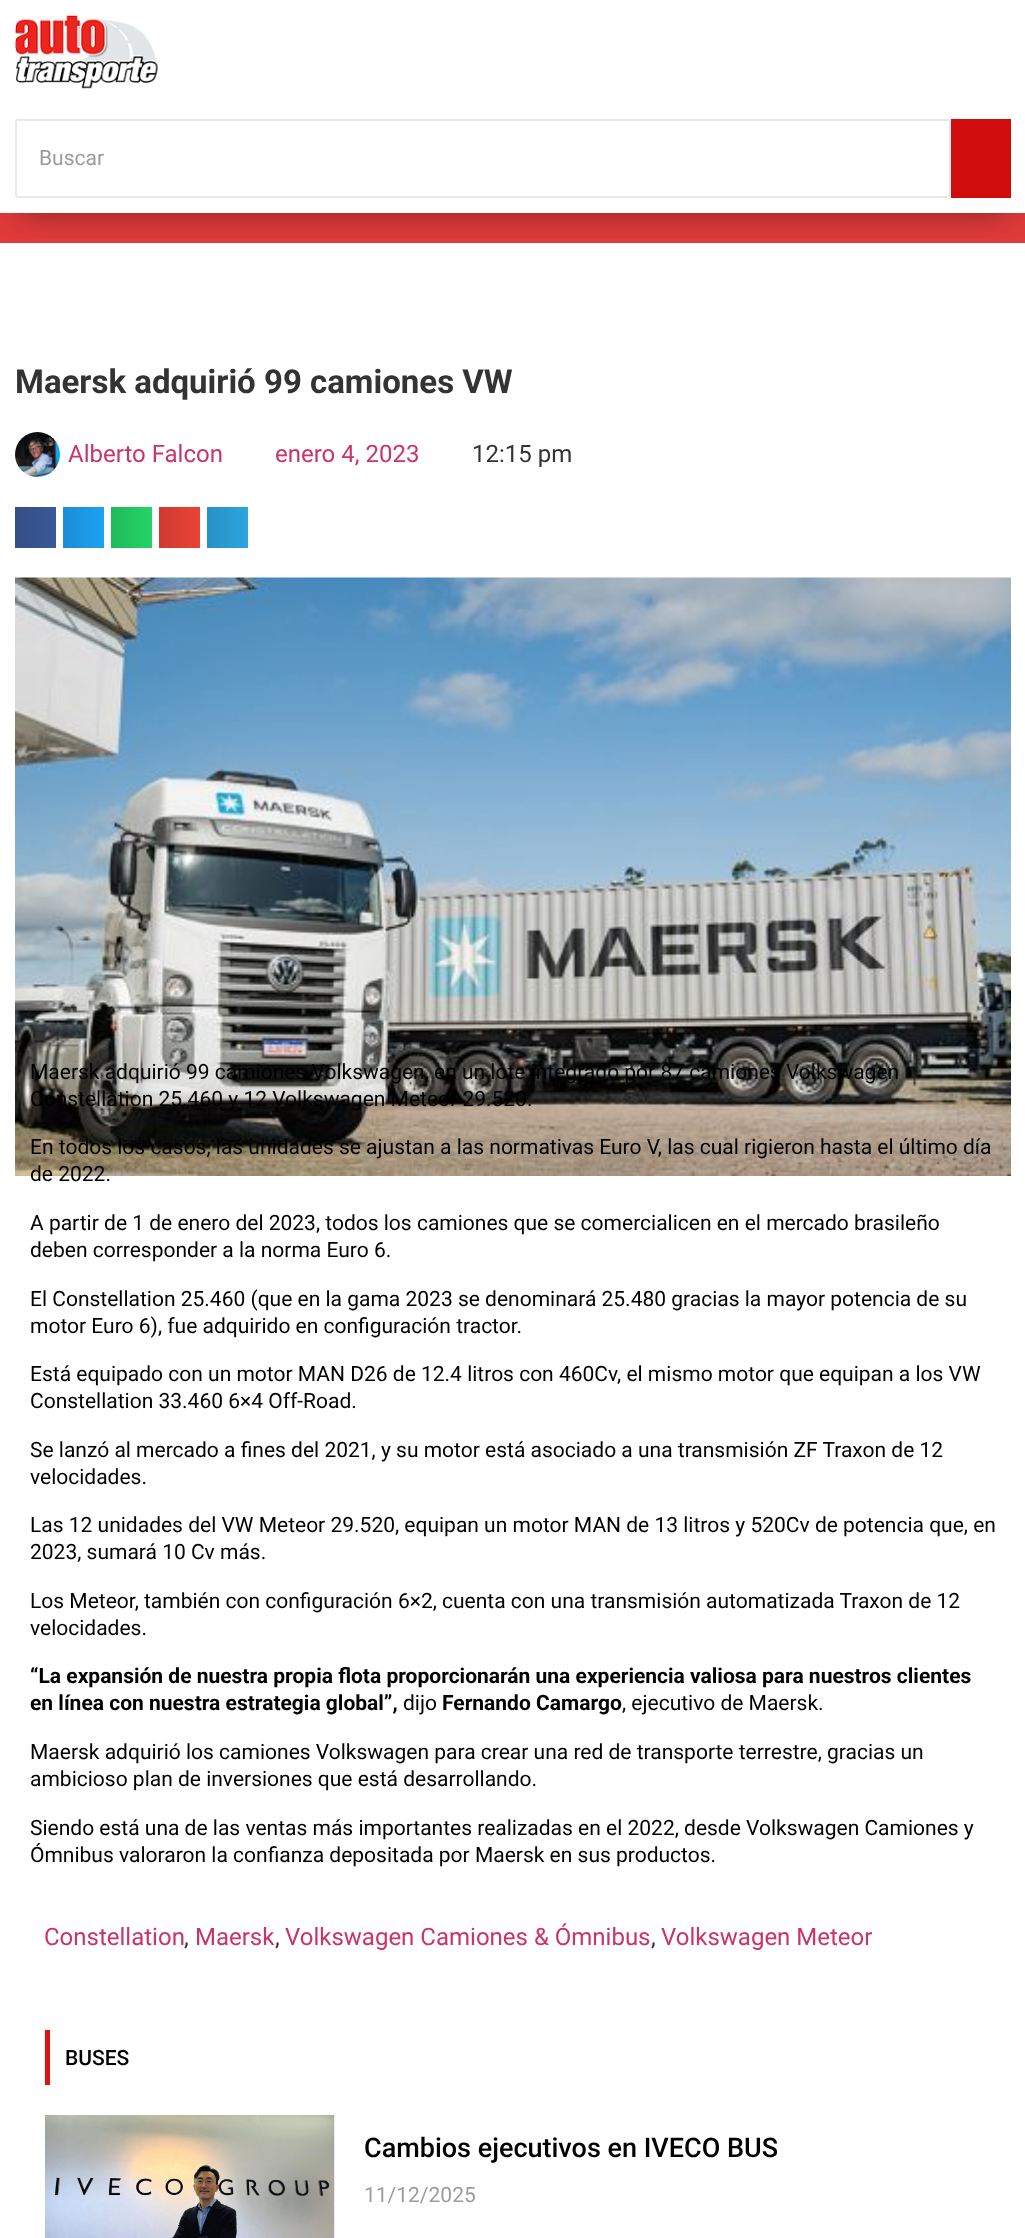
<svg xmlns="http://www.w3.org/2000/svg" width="1025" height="2238">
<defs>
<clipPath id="clip1"><rect x="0" y="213" width="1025" height="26"/></clipPath>
<linearGradient id="g1" gradientUnits="userSpaceOnUse" x1="15" y1="527" x2="56" y2="527"><stop offset="0" stop-color="#344e86"/><stop offset="1" stop-color="#3b5998"/></linearGradient>
<linearGradient id="g2" gradientUnits="userSpaceOnUse" x1="63" y1="527" x2="104" y2="527"><stop offset="0" stop-color="#1a8ed5"/><stop offset="1" stop-color="#1da1f2"/></linearGradient>
<linearGradient id="g3" gradientUnits="userSpaceOnUse" x1="111" y1="527" x2="152" y2="527"><stop offset="0" stop-color="#21ba5a"/><stop offset="1" stop-color="#25d366"/></linearGradient>
<linearGradient id="g4" gradientUnits="userSpaceOnUse" x1="159" y1="527" x2="200" y2="527"><stop offset="0" stop-color="#ce3b2f"/><stop offset="1" stop-color="#ea4335"/></linearGradient>
<linearGradient id="g5" gradientUnits="userSpaceOnUse" x1="207" y1="527" x2="248" y2="527"><stop offset="0" stop-color="#2791c5"/><stop offset="1" stop-color="#2ca5e0"/></linearGradient>
</defs>
<rect width="100%" height="100%" fill="#fff"/>
<image x="15" y="15" width="143" height="74" href="media/1.png"/>
<rect y="213" width="1025" height="30" fill="#e03a3a"/>
<g clip-path="url(#clip1)">
<rect x="20" y="138" width="987" height="71" fill="#00000080" filter="blur(17px)"/>
</g>
<rect x="16" y="120" width="934" height="77" rx="2" fill="none" stroke="#e8e8e8" stroke-width="2"/>
<text x="39" y="165" style="font-family:Roboto;font-size:21px;fill:#9c9c9c">Buscar</text>
<rect x="951" y="119" width="60" height="79" fill="#d10c0c"/>
<text x="15" y="393" style="font-family:Roboto;font-size:33px;font-weight:bold;fill:#333">Maersk adquirió 99 camiones VW</text>
<image x="15" y="432" width="45" height="45" href="media/2.png"/>
<text x="68" y="462" style="font-family:Roboto;font-size:24px;fill:#c36">Alberto Falcon</text>
<text x="275" y="462" style="font-family:Roboto;font-size:24px;fill:#c36">enero 4, 2023</text>
<text x="472" y="462" style="font-family:Roboto;font-size:24px;fill:#333">12:15 pm</text>
<rect x="15" y="507" width="41" height="41" fill="url(#g1)"/>
<rect x="63" y="507" width="41" height="41" fill="url(#g2)"/>
<rect x="111" y="507" width="41" height="41" fill="url(#g3)"/>
<rect x="159" y="507" width="41" height="41" fill="url(#g4)"/>
<rect x="207" y="507" width="41" height="41" fill="url(#g5)"/>
<image x="15" y="577" width="996" height="599" href="media/3.png"/>
<text x="30" y="1079" style="font-family:Roboto;font-size:21px;fill:#000">Maersk adquirió 99 camiones Volkswagen, en un lote integrado por 87 camiones Volkswagen</text>
<text x="30" y="1106" style="font-family:Roboto;font-size:21px;fill:#000">Constellation 25.460 y 12 Volkswagen Meteor 29.520.</text>
<text x="30" y="1154" style="font-family:Roboto;font-size:21px;fill:#000">En todos los casos, las unidades se ajustan a las normativas Euro V, las cual rigieron hasta el último día</text>
<text x="30" y="1181" style="font-family:Roboto;font-size:21px;fill:#000">de 2022.</text>
<text x="30" y="1230" style="font-family:Roboto;font-size:21px;fill:#000">A partir de 1 de enero del 2023, todos los camiones que se comercialicen en el mercado brasileño</text>
<text x="30" y="1257" style="font-family:Roboto;font-size:21px;fill:#000">deben corresponder a la norma Euro 6.</text>
<text x="30" y="1306" style="font-family:Roboto;font-size:21px;fill:#000">El Constellation 25.460 (que en la gama 2023 se denominará 25.480 gracias la mayor potencia de su</text>
<text x="30" y="1333" style="font-family:Roboto;font-size:21px;fill:#000">motor Euro 6), fue adquirido en configuración tractor.</text>
<text x="30" y="1381" style="font-family:Roboto;font-size:21px;fill:#000">Está equipado con un motor MAN D26 de 12.4 litros con 460Cv, el mismo motor que equipan a los VW</text>
<text x="30" y="1408" style="font-family:Roboto;font-size:21px;fill:#000">Constellation 33.460 6×4 Off-Road.</text>
<text x="30" y="1457" style="font-family:Roboto;font-size:21px;fill:#000">Se lanzó al mercado a fines del 2021, y su motor está asociado a una transmisión ZF Traxon de 12</text>
<text x="30" y="1484" style="font-family:Roboto;font-size:21px;fill:#000">velocidades.</text>
<text x="30" y="1532" style="font-family:Roboto;font-size:21px;fill:#000">Las 12 unidades del VW Meteor 29.520, equipan un motor MAN de 13 litros y 520Cv de potencia que, en</text>
<text x="30" y="1559" style="font-family:Roboto;font-size:21px;fill:#000">2023, sumará 10 Cv más.</text>
<text x="30" y="1608" style="font-family:Roboto;font-size:21px;fill:#000">Los Meteor, también con configuración 6×2, cuenta con una transmisión automatizada Traxon de 12</text>
<text x="30" y="1635" style="font-family:Roboto;font-size:21px;fill:#000">velocidades.</text>
<text x="30" y="1683" style="font-family:Roboto;font-size:21px;font-weight:bold;fill:#000">“La expansión de nuestra propia flota proporcionarán una experiencia valiosa para nuestros clientes</text>
<text x="30" y="1710" style="font-family:Roboto;font-size:21px;font-weight:bold;fill:#000">en línea con nuestra estrategia global”,</text>
<text x="403" y="1710" style="font-family:Roboto;font-size:21px;fill:#000">dijo</text>
<text x="442" y="1710" style="font-family:Roboto;font-size:21px;font-weight:bold;fill:#000">Fernando Camargo</text>
<text x="622" y="1710" style="font-family:Roboto;font-size:21px;fill:#000">, ejecutivo de Maersk.</text>
<text x="30" y="1759" style="font-family:Roboto;font-size:21px;fill:#000">Maersk adquirió los camiones Volkswagen para crear una red de transporte terrestre, gracias un</text>
<text x="30" y="1786" style="font-family:Roboto;font-size:21px;fill:#000">ambicioso plan de inversiones que está desarrollando.</text>
<text x="30" y="1835" style="font-family:Roboto;font-size:21px;fill:#000">Siendo está una de las ventas más importantes realizadas en el 2022, desde Volkswagen Camiones y</text>
<text x="30" y="1862" style="font-family:Roboto;font-size:21px;fill:#000">Ómnibus valoraron la confianza depositada por Maersk en sus productos.</text>
<text x="44" y="1945" style="font-family:Roboto;font-size:24px;fill:#c36">Constellation</text>
<text x="184" y="1945" style="font-family:Roboto;font-size:24px;fill:#333">,</text>
<text x="195" y="1945" style="font-family:Roboto;font-size:24px;fill:#c36">Maersk</text>
<text x="275" y="1945" style="font-family:Roboto;font-size:24px;fill:#333">,</text>
<text x="285" y="1945" style="font-family:Roboto;font-size:24px;fill:#c36">Volkswagen Camiones &amp; Ómnibus</text>
<text x="651" y="1945" style="font-family:Roboto;font-size:24px;fill:#333">,</text>
<text x="661" y="1945" style="font-family:Roboto;font-size:24px;fill:#c36">Volkswagen Meteor</text>
<rect x="45" y="2030" width="5" height="55" fill="#df1111"/>
<text x="65" y="2065" style="font-family:Roboto;font-size:21px;font-weight:500;fill:#000">BUSES</text>
<image x="45" y="2115" width="290" height="123" href="media/4.png"/>
<text x="364" y="2157" style="font-family:Roboto;font-size:27px;font-weight:500;fill:#000">Cambios ejecutivos en IVECO BUS</text>
<text x="364" y="2202" style="font-family:Roboto;font-size:21px;fill:#9c9c9c">11/12/2025</text>
</svg>
